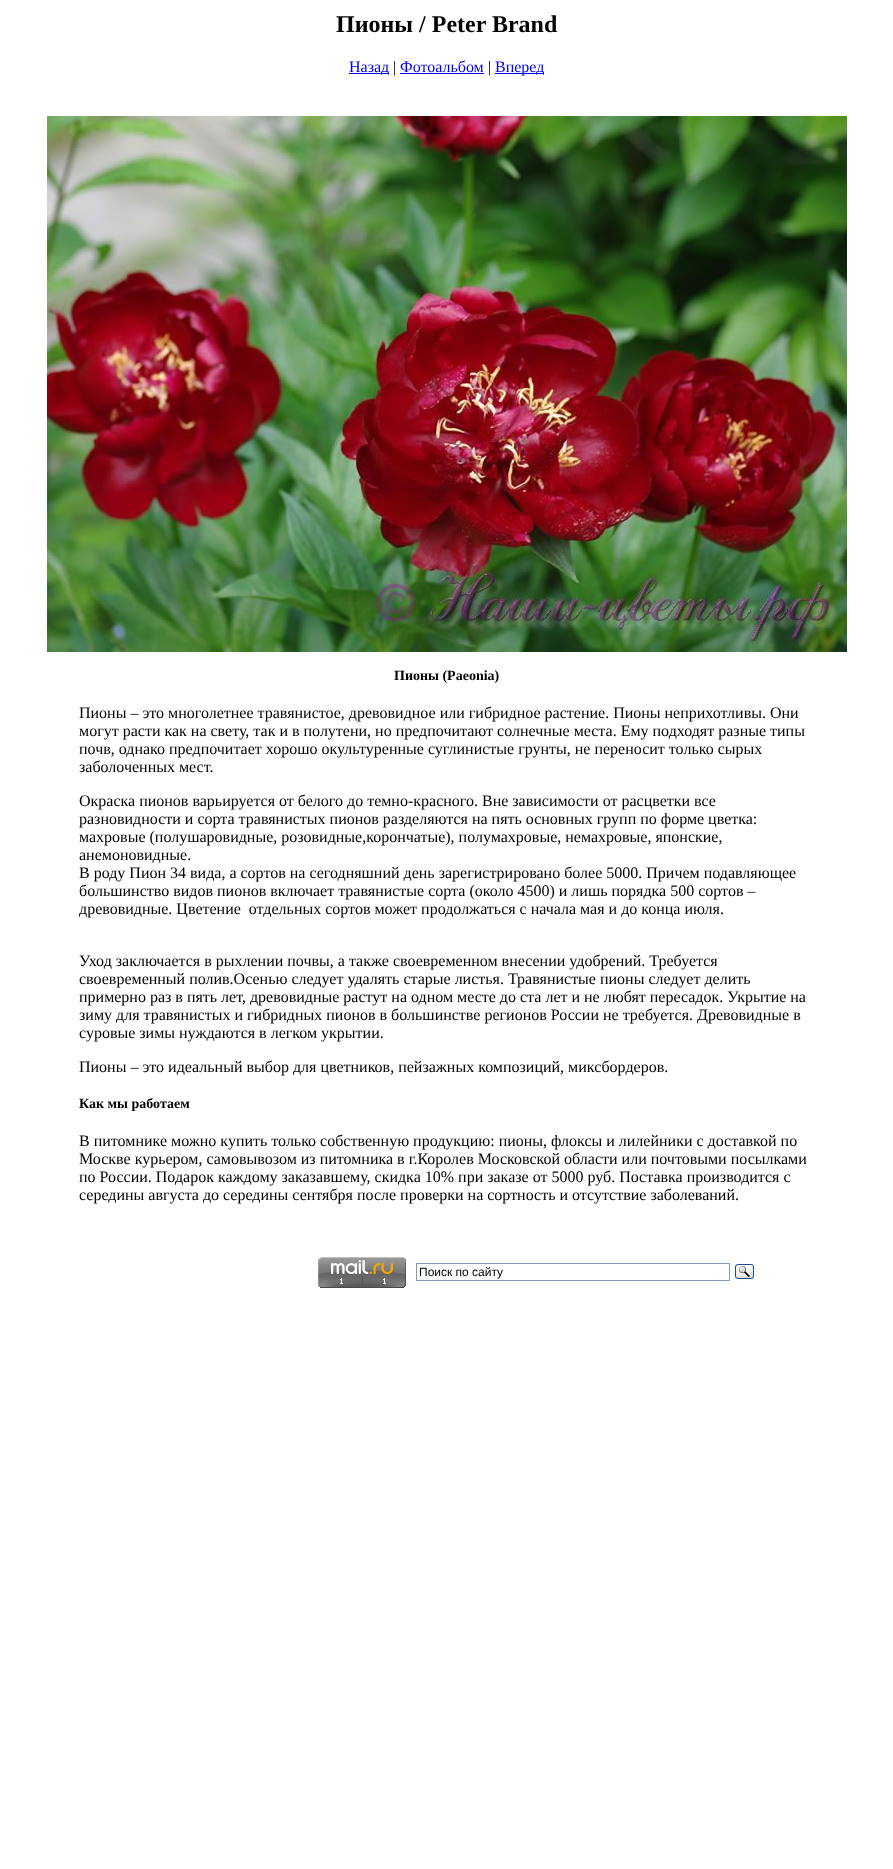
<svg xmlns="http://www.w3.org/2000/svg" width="893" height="1869">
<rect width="100%" height="100%" fill="#fff"/>
<text x="336" y="32" style="font-family:Liberation Serif;font-size:24px;font-weight:bold;fill:#000">Пионы / Peter Brand</text>
<rect x="349" y="73" width="40" height="1" fill="#00e"/>
<text x="349" y="72" style="font-family:Liberation Serif;font-size:16px;fill:#00e">Назад</text>
<text x="393" y="72" style="font-family:Liberation Serif;font-size:16px;fill:#000">|</text>
<text x="400" y="72" style="font-family:Liberation Serif;font-size:16px;fill:#00e">Фотоальбом</text>
<rect x="400" y="73" width="84" height="1" fill="#00e"/>
<text x="488" y="72" style="font-family:Liberation Serif;font-size:16px;fill:#000">|</text>
<rect x="495" y="73" width="49" height="1" fill="#00e"/>
<text x="495" y="72" style="font-family:Liberation Serif;font-size:16px;fill:#00e">Вперед</text>
<image x="47" y="116" width="800" height="536" href="media/1.png"/>
<text x="394" y="680" style="font-family:Liberation Serif;font-size:14px;font-weight:bold;fill:#000">Пионы (Paeonia)</text>
<text x="79" y="718" style="font-family:Liberation Serif;font-size:16px;fill:#000">Пионы – это многолетнее травянистое, древовидное или гибридное растение. Пионы неприхотливы. Они</text>
<text x="79" y="736" style="font-family:Liberation Serif;font-size:16px;fill:#000">могут расти как на свету, так и в полутени, но предпочитают солнечные места. Ему подходят разные типы</text>
<text x="79" y="754" style="font-family:Liberation Serif;font-size:16px;fill:#000">почв, однако предпочитает хорошо окультуренные суглинистые грунты, не переносит только сырых</text>
<text x="79" y="772" style="font-family:Liberation Serif;font-size:16px;fill:#000">заболоченных мест.</text>
<text x="79" y="806" style="font-family:Liberation Serif;font-size:16px;fill:#000">Окраска пионов варьируется от белого до темно-красного. Вне зависимости от расцветки все</text>
<text x="79" y="824" style="font-family:Liberation Serif;font-size:16px;fill:#000">разновидности и сорта травянистых пионов разделяются на пять основных групп по форме цветка:</text>
<text x="79" y="842" style="font-family:Liberation Serif;font-size:16px;fill:#000">махровые (полушаровидные, розовидные,корончатые), полумахровые, немахровые, японские,</text>
<text x="79" y="860" style="font-family:Liberation Serif;font-size:16px;fill:#000">анемоновидные.</text>
<text x="79" y="878" style="font-family:Liberation Serif;font-size:16px;fill:#000">В роду Пион 34 вида, а сортов на сегодняшний день зарегистрировано более 5000. Причем подавляющее</text>
<text x="79" y="896" style="font-family:Liberation Serif;font-size:16px;fill:#000">большинство видов пионов включает травянистые сорта (около 4500) и лишь порядка 500 сортов –</text>
<text x="79" y="914" style="font-family:Liberation Serif;font-size:16px;fill:#000" xml:space="preserve">древовидные. Цветение  отдельных сортов может продолжаться с начала мая и до конца июля.</text>
<text x="79" y="966" style="font-family:Liberation Serif;font-size:16px;fill:#000">Уход заключается в рыхлении почвы, а также своевременном внесении удобрений. Требуется</text>
<text x="79" y="984" style="font-family:Liberation Serif;font-size:16px;fill:#000">своевременный полив.Осенью следует удалять старые листья. Травянистые пионы следует делить</text>
<text x="79" y="1002" style="font-family:Liberation Serif;font-size:16px;fill:#000">примерно раз в пять лет, древовидные растут на одном месте до ста лет и не любят пересадок. Укрытие на</text>
<text x="79" y="1020" style="font-family:Liberation Serif;font-size:16px;fill:#000">зиму для травянистых и гибридных пионов в большинстве регионов России не требуется. Древовидные в</text>
<text x="79" y="1038" style="font-family:Liberation Serif;font-size:16px;fill:#000">суровые зимы нуждаются в легком укрытии.</text>
<text x="79" y="1072" style="font-family:Liberation Serif;font-size:16px;fill:#000">Пионы – это идеальный выбор для цветников, пейзажных композиций, миксбордеров.</text>
<text x="79" y="1108" style="font-family:Liberation Serif;font-size:14px;font-weight:bold;fill:#000">Как мы работаем</text>
<text x="79" y="1146" style="font-family:Liberation Serif;font-size:16px;fill:#000">В питомнике можно купить только собственную продукцию: пионы, флоксы и лилейники с доставкой по</text>
<text x="79" y="1164" style="font-family:Liberation Serif;font-size:16px;fill:#000">Москве курьером, самовывозом из питомника в г.Королев Московской области или почтовыми посылками</text>
<text x="79" y="1182" style="font-family:Liberation Serif;font-size:16px;fill:#000">по России. Подарок каждому заказавшему, скидка 10% при заказе от 5000 руб. Поставка производится с</text>
<text x="79" y="1200" style="font-family:Liberation Serif;font-size:16px;fill:#000">середины августа до середины сентября после проверки на сортность и отсутствие заболеваний.</text>
<image x="318" y="1257" width="88" height="31" href="media/2.png"/>
<rect x="416.5" y="1263.5" width="313" height="17" fill="none" stroke="#7f9db9"/>
<text x="419" y="1276" style="font-family:Liberation Sans;font-size:12px;fill:#000">Поиск по сайту</text>
<image x="735" y="1264" width="19" height="15" href="media/3.png"/>
</svg>
